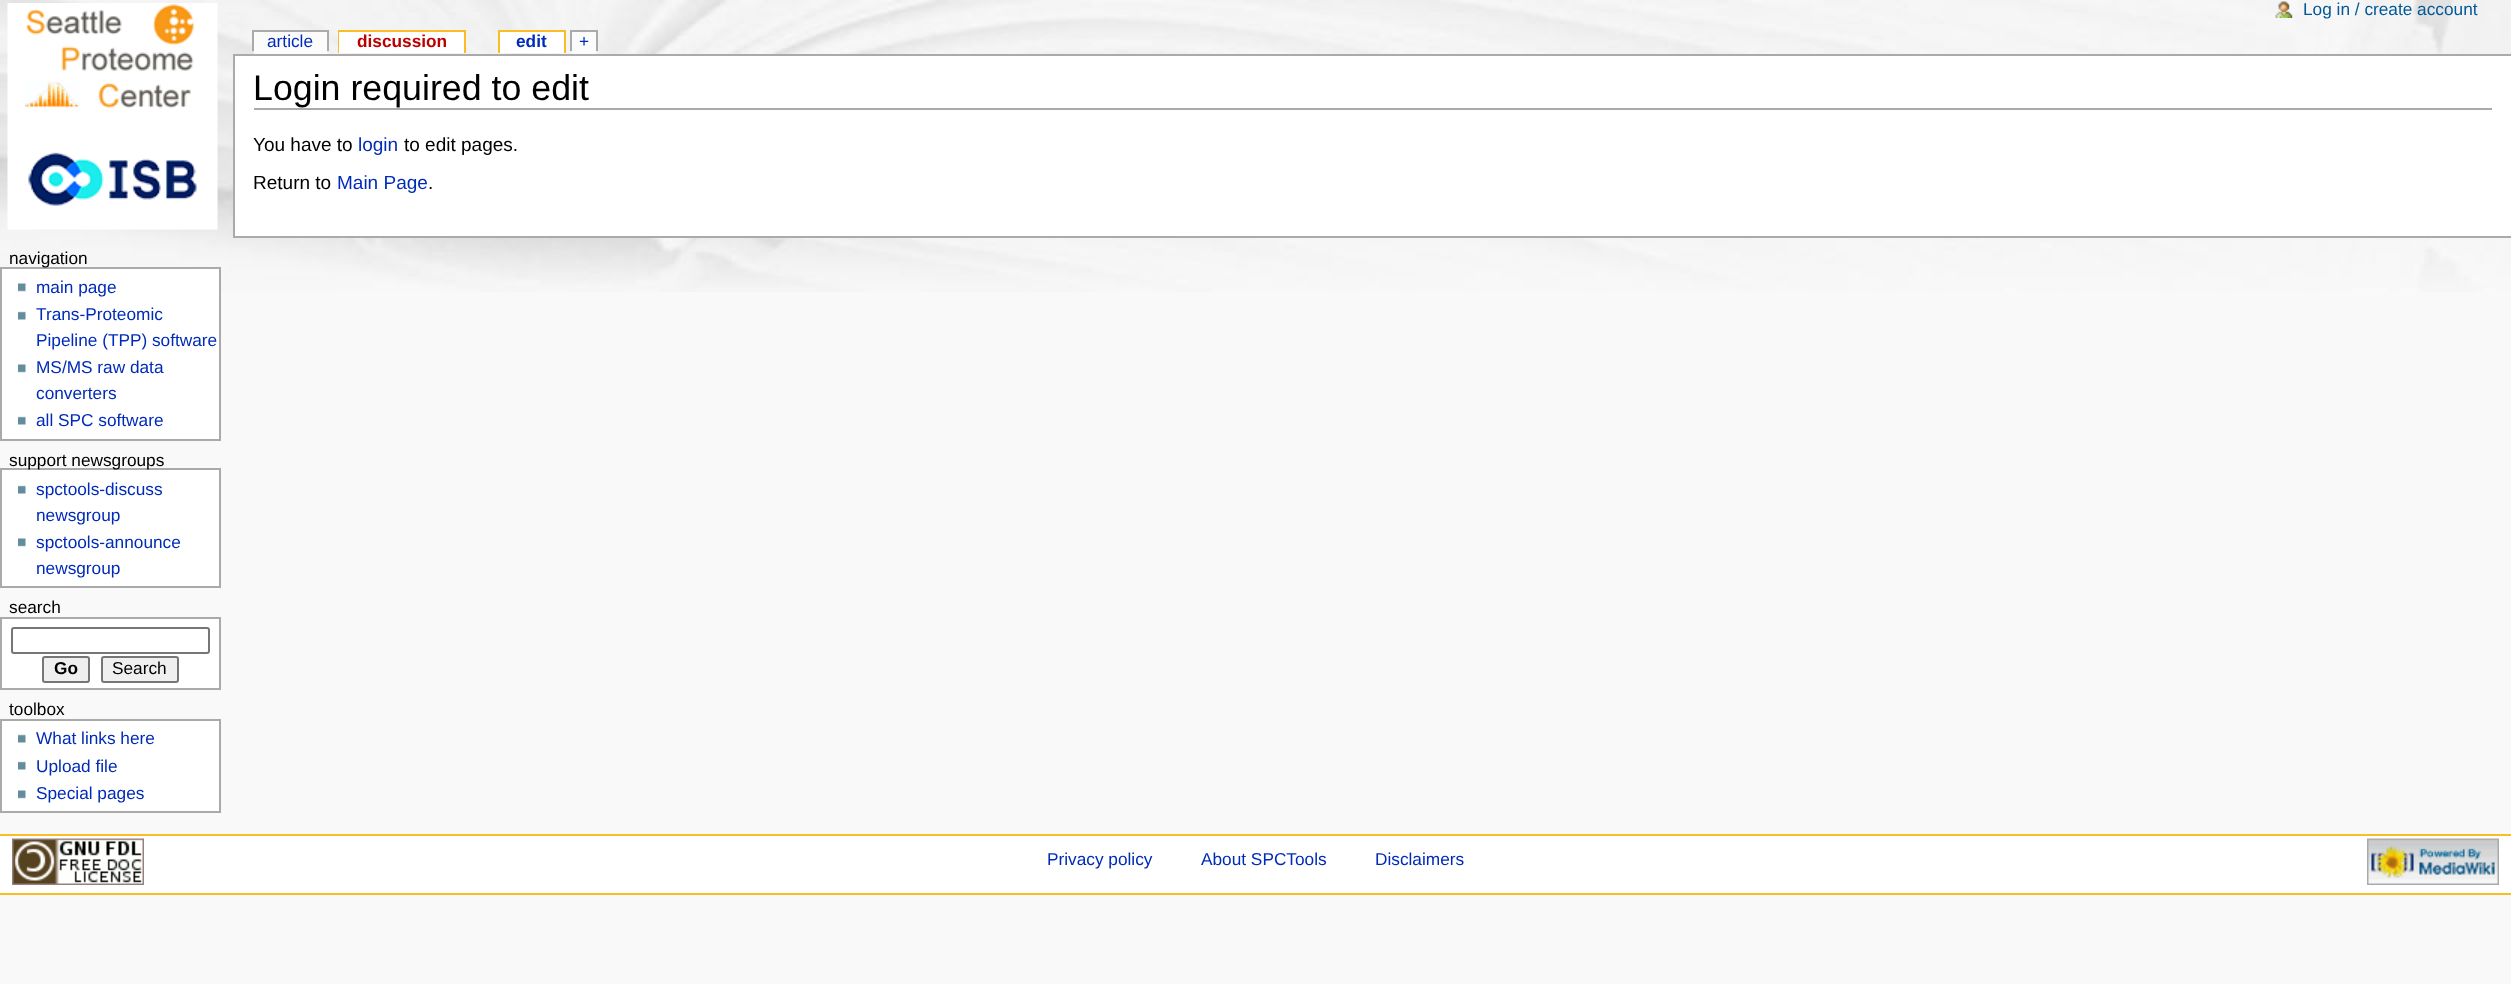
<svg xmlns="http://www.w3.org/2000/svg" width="2511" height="984">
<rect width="100%" height="100%" fill="#f9f9f9"/>
<image x="0" y="0" width="2511" height="292" href="media/1.png"/>
<image x="7" y="3" width="211" height="227" href="media/2.png"/>
<rect x="254" y="32" width="73" height="22" fill="#fbfbfb"/>
<text x="267" y="47" style="font-family:Liberation Sans;font-size:17.25px;fill:#002bb8">article</text>
<rect x="252" y="30" width="77" height="2" fill="#aaa"/>
<rect x="327" y="30" width="2" height="21" fill="#aaa"/>
<rect x="252" y="30" width="2" height="21" fill="#aaa"/>
<rect x="338" y="30" width="127" height="2" fill="#fabd23"/>
<rect x="338" y="30" width="2" height="23" fill="#fabd23"/>
<rect x="339" y="32" width="125" height="21" fill="#fff"/>
<text x="357" y="47" style="font-family:Liberation Sans;font-size:17.25px;font-weight:bold;fill:#ba0000">discussion</text>
<rect x="464" y="30" width="2" height="23" fill="#fabd23"/>
<rect x="500" y="32" width="64" height="21" fill="#fff"/>
<text x="516" y="47" style="font-family:Liberation Sans;font-size:17.25px;font-weight:bold;fill:#002bb8">edit</text>
<rect x="498" y="30" width="68" height="2" fill="#fabd23"/>
<rect x="564" y="30" width="2" height="23" fill="#fabd23"/>
<rect x="498" y="30" width="2" height="23" fill="#fabd23"/>
<rect x="572" y="32" width="24" height="22" fill="#fbfbfb"/>
<text x="579" y="47" style="font-family:Liberation Sans;font-size:17.25px;fill:#002bb8">+</text>
<rect x="570" y="30" width="27" height="2" fill="#aaa"/>
<rect x="596" y="30" width="2" height="21" fill="#aaa"/>
<rect x="570" y="30" width="2" height="21" fill="#aaa"/>
<image x="2275" y="1" width="18" height="17" href="media/3.png"/>
<text x="2303" y="15" style="font-family:Liberation Sans;font-size:17.25px;fill:#005896">Log in / create account</text>
<rect x="1" y="268" width="219" height="172" fill="#fff" stroke="#aaa" stroke-width="2"/>
<text x="9" y="264" style="font-family:Liberation Sans;font-size:17.25px;fill:#000">navigation</text>
<image x="18" y="283" width="8" height="9" href="media/4.png"/>
<text x="36" y="293" style="font-family:Liberation Sans;font-size:17.25px;fill:#002bb8">main page</text>
<image x="18" y="311" width="8" height="9" href="media/5.png"/>
<text x="36" y="320" style="font-family:Liberation Sans;font-size:17.25px;fill:#002bb8">Trans-Proteomic</text>
<text x="36" y="346" style="font-family:Liberation Sans;font-size:17.25px;fill:#002bb8">Pipeline (TPP) software</text>
<image x="18" y="364" width="8" height="9" href="media/4.png"/>
<text x="36" y="373" style="font-family:Liberation Sans;font-size:17.25px;fill:#002bb8">MS/MS raw data</text>
<text x="36" y="399" style="font-family:Liberation Sans;font-size:17.25px;fill:#002bb8">converters</text>
<image x="18" y="416" width="8" height="9" href="media/5.png"/>
<text x="36" y="426" style="font-family:Liberation Sans;font-size:17.25px;fill:#002bb8">all SPC software</text>
<rect x="1" y="469" width="219" height="118" fill="#fff" stroke="#aaa" stroke-width="2"/>
<text x="9" y="466" style="font-family:Liberation Sans;font-size:17.25px;fill:#000">support newsgroups</text>
<image x="18" y="485" width="8" height="9" href="media/5.png"/>
<text x="36" y="495" style="font-family:Liberation Sans;font-size:17.25px;fill:#002bb8">spctools-discuss</text>
<text x="36" y="521" style="font-family:Liberation Sans;font-size:17.25px;fill:#002bb8">newsgroup</text>
<image x="18" y="538" width="8" height="9" href="media/4.png"/>
<text x="36" y="548" style="font-family:Liberation Sans;font-size:17.25px;fill:#002bb8">spctools-announce</text>
<text x="36" y="574" style="font-family:Liberation Sans;font-size:17.25px;fill:#002bb8">newsgroup</text>
<text x="9" y="613" style="font-family:Liberation Sans;font-size:17.25px;fill:#000">search</text>
<rect x="1" y="618" width="219" height="71" fill="#fff" stroke="#aaa" stroke-width="2"/>
<rect x="12" y="628" width="197" height="25" rx="2" fill="none" stroke="#767676" stroke-width="2"/>
<rect x="43" y="657" width="46" height="25" rx="2" fill="#efefef" stroke="#767676" stroke-width="2"/>
<text x="54" y="674" style="font-family:Liberation Sans;font-size:17.25px;font-weight:bold;fill:#000">Go</text>
<rect x="102" y="657" width="76" height="25" rx="2" fill="#efefef" stroke="#767676" stroke-width="2"/>
<text x="112" y="674" style="font-family:Liberation Sans;font-size:17.25px;fill:#000">Search</text>
<text x="9" y="715" style="font-family:Liberation Sans;font-size:17.25px;fill:#000">toolbox</text>
<rect x="1" y="720" width="219" height="92" fill="#fff" stroke="#aaa" stroke-width="2"/>
<image x="18" y="734" width="8" height="9" href="media/5.png"/>
<text x="36" y="744" style="font-family:Liberation Sans;font-size:17.25px;fill:#002bb8">What links here</text>
<image x="18" y="761" width="8" height="9" href="media/5.png"/>
<text x="36" y="772" style="font-family:Liberation Sans;font-size:17.25px;fill:#002bb8">Upload file</text>
<image x="18" y="790" width="8" height="9" href="media/4.png"/>
<text x="36" y="799" style="font-family:Liberation Sans;font-size:17.25px;fill:#002bb8">Special pages</text>
<rect x="235" y="56" width="2276" height="180" fill="#fff"/>
<rect x="233" y="54" width="2278" height="2" fill="#aaa"/>
<rect x="233" y="236" width="2278" height="2" fill="#aaa"/>
<rect x="233" y="54" width="2" height="183" fill="#aaa"/>
<rect x="254" y="108" width="2238" height="2" fill="#aaa"/>
<text x="253" y="100" style="font-family:Liberation Sans;font-size:35.75px;fill:#000">Login required to edit</text>
<text x="253" y="151" style="font-family:Liberation Sans;font-size:19px;fill:#000">You have to</text>
<text x="358" y="151" style="font-family:Liberation Sans;font-size:19px;fill:#002bb8">login</text>
<text x="404" y="151" style="font-family:Liberation Sans;font-size:19px;fill:#000">to edit pages.</text>
<text x="253" y="189" style="font-family:Liberation Sans;font-size:19px;fill:#000">Return to</text>
<text x="337" y="189" style="font-family:Liberation Sans;font-size:19px;fill:#002bb8">Main Page</text>
<text x="428" y="189" style="font-family:Liberation Sans;font-size:19px;fill:#000">.</text>
<rect y="836" width="2511" height="57" fill="#fff"/>
<rect y="834" width="2511" height="2" fill="#fabd23"/>
<rect y="893" width="2511" height="2" fill="#fabd23"/>
<image x="12" y="838" width="132" height="47" href="media/6.png"/>
<text x="1047" y="865" style="font-family:Liberation Sans;font-size:17.25px;fill:#002bb8">Privacy policy</text>
<text x="1201" y="865" style="font-family:Liberation Sans;font-size:17.25px;fill:#002bb8">About SPCTools</text>
<text x="1375" y="865" style="font-family:Liberation Sans;font-size:17.25px;fill:#002bb8">Disclaimers</text>
<image x="2367" y="838" width="132" height="47" href="media/7.png"/>
</svg>
